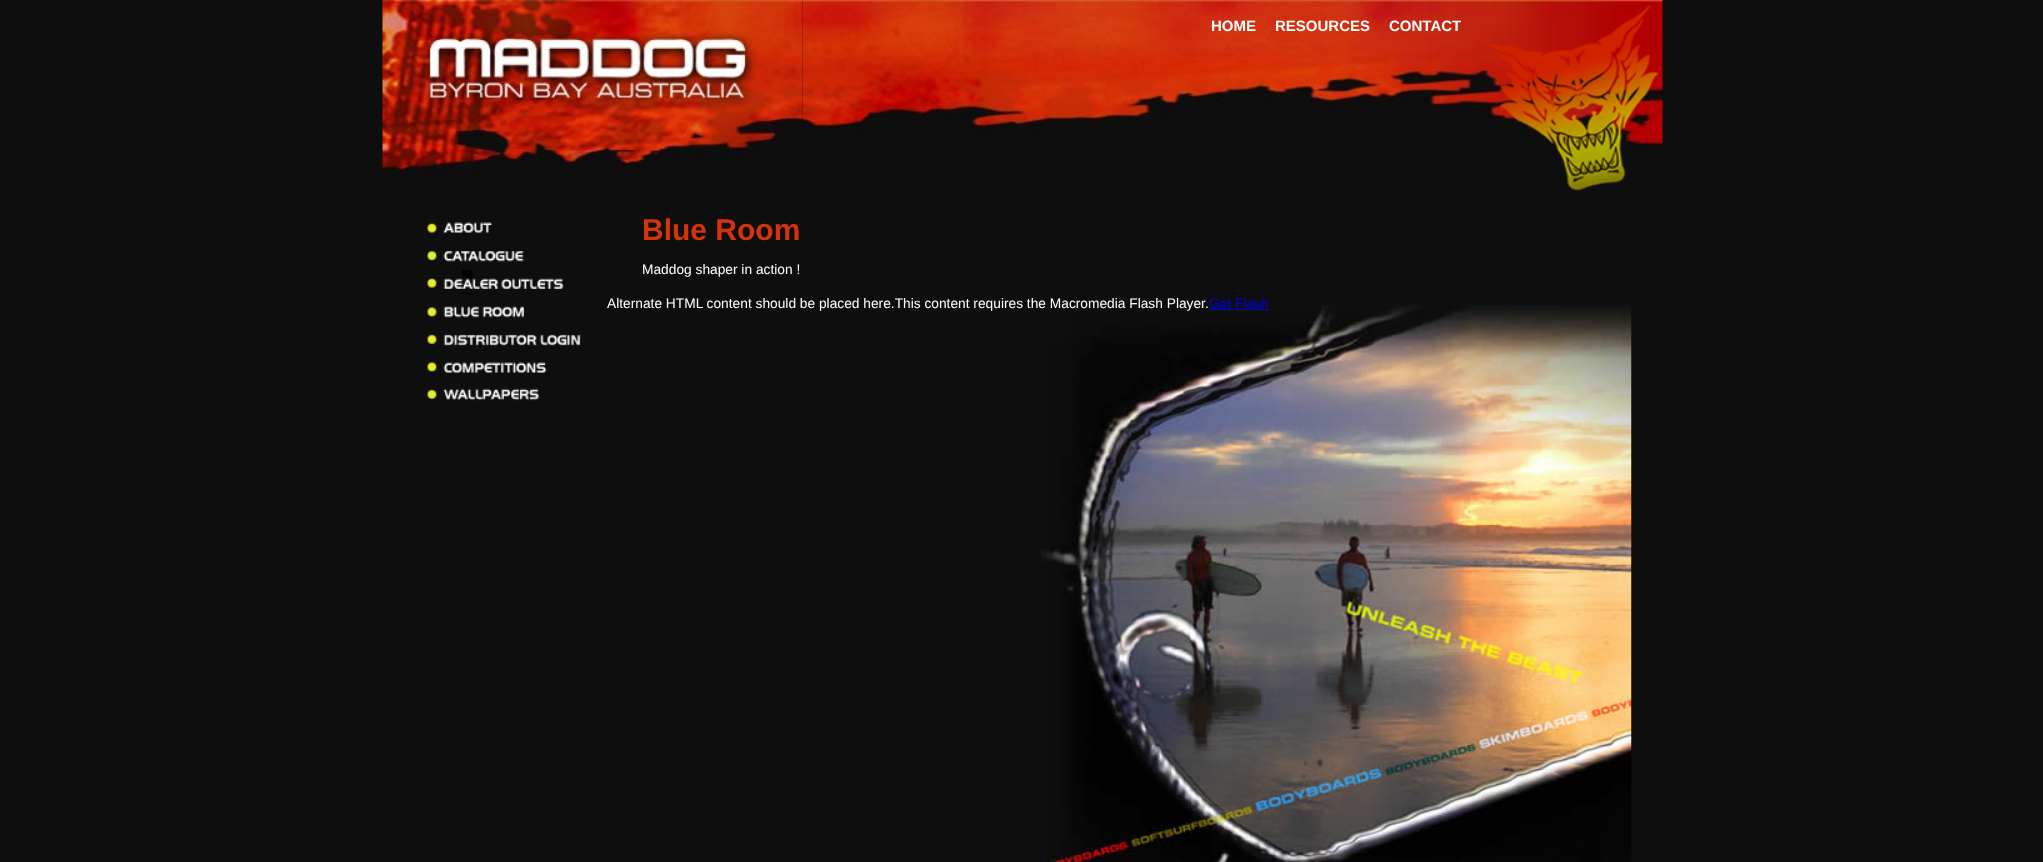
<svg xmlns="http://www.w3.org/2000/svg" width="2043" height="862">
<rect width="100%" height="100%" fill="#0e0e0e"/>
<image x="802" y="0" width="861" height="156" href="media/2.png"/>
<image x="382" y="0" width="421" height="180" href="media/1.png"/>
<text x="1211" y="31" style="font-family:Liberation Sans;font-size:15px;font-weight:bold;fill:#fff">HOME</text>
<text x="1275" y="31" style="font-family:Liberation Sans;font-size:15px;font-weight:bold;fill:#fff">RESOURCES</text>
<text x="1389" y="31" style="font-family:Liberation Sans;font-size:15px;font-weight:bold;fill:#fff">CONTACT</text>
<image x="1481" y="4" width="178" height="187" href="media/3.png"/>
<image x="427" y="222" width="65" height="11" href="media/4.png"/>
<image x="427" y="251" width="97" height="11" href="media/5.png"/>
<image x="427" y="270" width="137" height="24" href="media/6.png"/>
<image x="427" y="306" width="97" height="12" href="media/7.png"/>
<image x="427" y="334" width="154" height="12" href="media/8.png"/>
<image x="427" y="362" width="120" height="11" href="media/9.png"/>
<image x="427" y="388" width="112" height="13" href="media/10.png"/>
<text x="642" y="240" style="font-family:Liberation Sans;font-size:30px;font-weight:bold;fill:#d5330c">Blue Room</text>
<text x="642" y="274" style="font-family:Liberation Sans;font-size:13.75px;fill:#fff">Maddog shaper in action !</text>
<image x="1041" y="305" width="591" height="557" href="media/11.png"/>
<text x="607" y="308" style="font-family:Liberation Sans;font-size:13.75px;fill:#fff">Alternate HTML content should be placed here.This content requires the Macromedia Flash Player.</text>
<text x="1209" y="308" style="font-family:Liberation Sans;font-size:13.75px;fill:#00e">Get Flash</text>
<rect x="1209" y="309" width="60" height="1" fill="#00e"/>
</svg>
